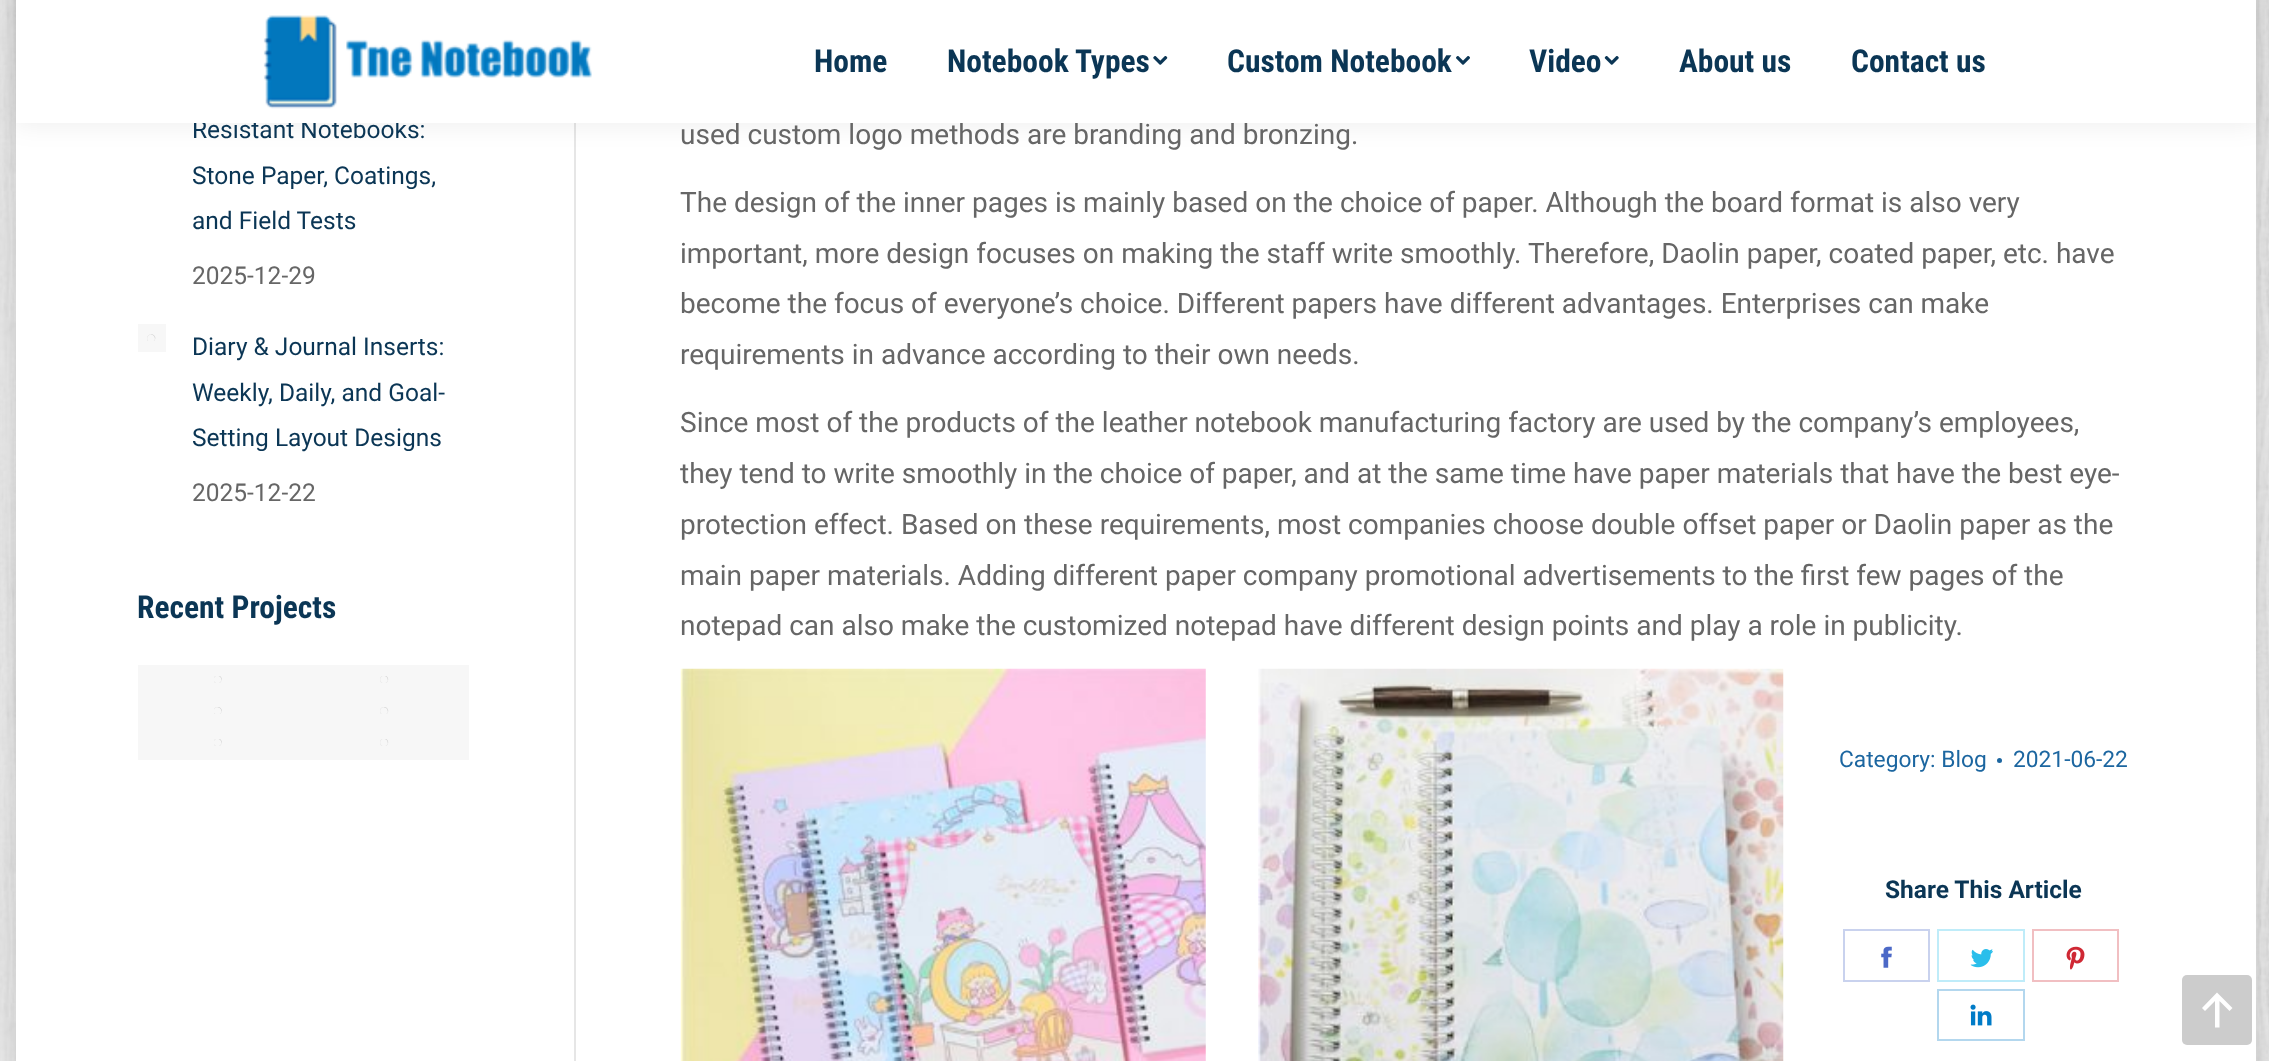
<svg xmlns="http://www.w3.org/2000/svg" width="2269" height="1061">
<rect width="100%" height="100%" fill="#fff"/>
<image x="0" y="0" width="2269" height="1061" href="media/1.png"/>
<rect x="16" y="-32" width="2240" height="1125" fill="#00000026" filter="blur(10.5px)"/>
<rect x="16" y="123" width="2240" height="938" fill="#fff"/>
<rect x="574" y="123" width="2" height="938" fill="#e6e6e6"/>
<rect x="14" y="-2" width="2244" height="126" fill="#00000012" filter="blur(13px)"/>
<text x="192" y="138" style="font-family:Roboto;font-size:24.5px;fill:#0b3655">Resistant Notebooks:</text>
<rect x="16" width="2240" height="123" fill="#fff"/>
<image x="263" y="15" width="329" height="94" href="media/2.png"/>
<text x="814" y="72" style="font-family:Roboto Condensed;font-size:31.5px;font-weight:bold;fill:#0b3655">Home</text>
<text x="947" y="72" style="font-family:Roboto Condensed;font-size:31.5px;font-weight:bold;fill:#0b3655">Notebook Types</text>
<image x="1153" y="56" width="15" height="9" href="media/3.png"/>
<text x="1227" y="72" style="font-family:Roboto Condensed;font-size:31.5px;font-weight:bold;fill:#0b3655">Custom Notebook</text>
<image x="1456" y="56" width="14" height="9" href="media/4.png"/>
<text x="1529" y="72" style="font-family:Roboto Condensed;font-size:31.5px;font-weight:bold;fill:#0b3655">Video</text>
<image x="1604" y="56" width="15" height="9" href="media/5.png"/>
<text x="1679" y="72" style="font-family:Roboto Condensed;font-size:31.5px;font-weight:bold;fill:#0b3655">About us</text>
<text x="1851" y="72" style="font-family:Roboto Condensed;font-size:31.5px;font-weight:bold;fill:#0b3655">Contact us</text>
<text x="192" y="184" style="font-family:Roboto;font-size:24.5px;fill:#0b3655">Stone Paper, Coatings,</text>
<text x="192" y="229" style="font-family:Roboto;font-size:24.5px;fill:#0b3655">and Field Tests</text>
<text x="192" y="284" style="font-family:Roboto;font-size:24.5px;fill:#666">2025-12-29</text>
<rect x="138" y="324" width="28" height="28" fill="#f7f7f7"/>
<image x="147" y="334" width="9" height="7" href="media/6.png"/>
<text x="192" y="355" style="font-family:Roboto;font-size:24.5px;fill:#0b3655">Diary &amp; Journal Inserts:</text>
<text x="192" y="401" style="font-family:Roboto;font-size:24.5px;fill:#0b3655">Weekly, Daily, and Goal-</text>
<text x="192" y="446" style="font-family:Roboto;font-size:24.5px;fill:#0b3655">Setting Layout Designs</text>
<text x="192" y="501" style="font-family:Roboto;font-size:24.5px;fill:#666">2025-12-22</text>
<text x="137" y="618" style="font-family:Roboto Condensed;font-size:31.5px;font-weight:bold;fill:#0b3655">Recent Projects</text>
<rect x="138" y="665" width="331" height="32" fill="#f7f7f7"/>
<image x="214" y="676" width="8" height="7" href="media/7.png"/>
<image x="380" y="676" width="9" height="7" href="media/8.png"/>
<rect x="138" y="697" width="331" height="31" fill="#f7f7f7"/>
<image x="214" y="707" width="8" height="7" href="media/9.png"/>
<image x="380" y="707" width="9" height="7" href="media/10.png"/>
<rect x="138" y="728" width="331" height="32" fill="#f7f7f7"/>
<image x="214" y="739" width="8" height="7" href="media/7.png"/>
<image x="380" y="739" width="9" height="7" href="media/8.png"/>
<text x="680" y="144" style="font-family:Roboto;font-size:28px;fill:#666">used custom logo methods are branding and bronzing.</text>
<text x="680" y="212" style="font-family:Roboto;font-size:28px;fill:#666">The design of the inner pages is mainly based on the choice of paper. Although the board format is also very</text>
<text x="680" y="263" style="font-family:Roboto;font-size:28px;fill:#666">important, more design focuses on making the staff write smoothly. Therefore, Daolin paper, coated paper, etc. have</text>
<text x="680" y="313" style="font-family:Roboto;font-size:28px;fill:#666">become the focus of everyone’s choice. Different papers have different advantages. Enterprises can make</text>
<text x="680" y="364" style="font-family:Roboto;font-size:28px;fill:#666">requirements in advance according to their own needs.</text>
<text x="680" y="432" style="font-family:Roboto;font-size:28px;fill:#666">Since most of the products of the leather notebook manufacturing factory are used by the company’s employees,</text>
<text x="680" y="483" style="font-family:Roboto;font-size:28px;fill:#666">they tend to write smoothly in the choice of paper, and at the same time have paper materials that have the best eye-</text>
<text x="680" y="534" style="font-family:Roboto;font-size:28px;fill:#666">protection effect. Based on these requirements, most companies choose double offset paper or Daolin paper as the</text>
<text x="680" y="585" style="font-family:Roboto;font-size:28px;fill:#666">main paper materials. Adding different paper company promotional advertisements to the first few pages of the</text>
<text x="680" y="635" style="font-family:Roboto;font-size:28px;fill:#666">notepad can also make the customized notepad have different design points and play a role in publicity.</text>
<image x="680" y="668" width="526" height="393" href="media/11.png"/>
<image x="1258" y="668" width="526" height="393" href="media/12.png"/>
<text x="1839" y="767" style="font-family:Roboto;font-size:22.75px;fill:#1c66a0">Category: Blog</text>
<circle cx="1999.5" cy="760.5" r="2.5" fill="#1c66a0"/>
<text x="2013" y="767" style="font-family:Roboto;font-size:22.75px;fill:#1c66a0">2021-06-22</text>
<text x="1885" y="898" style="font-family:Roboto;font-size:24.5px;font-weight:bold;fill:#0b3655">Share This Article</text>
<rect x="1844" y="930" width="85" height="51" fill="none" stroke="#c9d2ee" stroke-width="2"/>
<image x="1881" y="946" width="11" height="22" href="media/13.png"/>
<rect x="1938" y="930" width="86" height="51" fill="none" stroke="#bfecf9" stroke-width="2"/>
<image x="1970" y="949" width="23" height="19" href="media/14.png"/>
<rect x="2033" y="930" width="85" height="51" fill="none" stroke="#f1bfc2" stroke-width="2"/>
<image x="2066" y="946" width="19" height="24" href="media/15.png"/>
<rect x="1938" y="990" width="86" height="50" fill="none" stroke="#b3d7ee" stroke-width="2"/>
<image x="1970" y="1004" width="22" height="22" href="media/16.png"/>
<rect x="2182" y="975" width="70" height="70" rx="5" fill="#ccc"/>
<path d="M2202 1008l3 3l10-10v26.5h4.5v-26.5l10 10l3-3l-15.5-15.5z" fill="#fff"/>
</svg>
